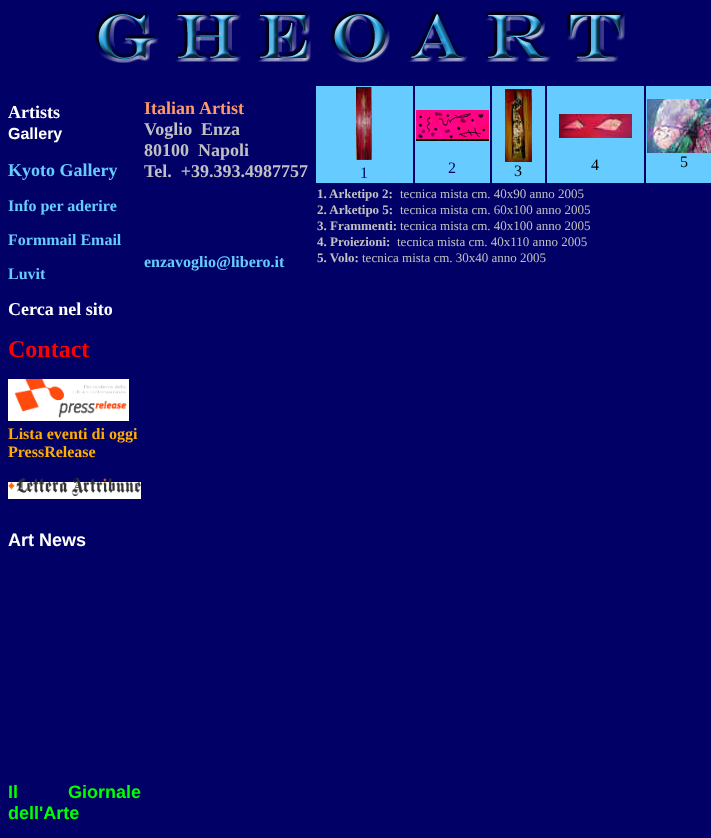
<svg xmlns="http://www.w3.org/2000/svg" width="711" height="838">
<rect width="100%" height="100%" fill="#006"/>
<image x="93" y="8" width="532" height="56" href="media/1.png"/>
<text x="8" y="118" style="font-family:Liberation Serif;font-size:18px;font-weight:bold;fill:#fff">Artists</text>
<text x="8" y="139" style="font-family:Liberation Sans;font-size:16px;font-weight:bold;fill:#fff">Gallery</text>
<text x="8" y="176" style="font-family:Liberation Serif;font-size:18px;font-weight:bold;fill:#6cf">Kyoto Gallery</text>
<text x="8" y="211" style="font-family:Liberation Serif;font-size:16px;font-weight:bold;fill:#6cf">Info per aderire</text>
<text x="8" y="245" style="font-family:Liberation Serif;font-size:16px;font-weight:bold;fill:#6cf">Formmail Email</text>
<text x="8" y="279" style="font-family:Liberation Serif;font-size:16px;font-weight:bold;fill:#6cf">Luvit</text>
<text x="8" y="315" style="font-family:Liberation Serif;font-size:18px;font-weight:bold;fill:#fff">Cerca nel sito</text>
<text x="8" y="357" style="font-family:Liberation Serif;font-size:24px;font-weight:bold;fill:#f00">Contact</text>
<image x="8" y="379" width="121" height="42" href="media/2.png"/>
<text x="8" y="439" style="font-family:Liberation Serif;font-size:16px;font-weight:bold;fill:#ffad00">Lista eventi di oggi</text>
<text x="8" y="457" style="font-family:Liberation Serif;font-size:16px;font-weight:bold;fill:#ffad00">PressRelease</text>
<rect x="8" y="482" width="133" height="17" fill="#fff"/>
<image x="8" y="477" width="133" height="19" href="media/3.png"/>
<text x="8" y="546" style="font-family:Liberation Sans;font-size:18px;font-weight:bold;fill:#fff">Art News</text>
<text x="8" y="798" word-spacing="45" style="font-family:Liberation Sans;font-size:18px;font-weight:bold;fill:#0f0">Il Giornale</text>
<text x="8" y="819" style="font-family:Liberation Sans;font-size:18px;font-weight:bold;fill:#0f0">dell'Arte</text>
<text x="144" y="114" style="font-family:Liberation Serif;font-size:18px;font-weight:bold;fill:#f96">Italian</text>
<text x="199" y="114" style="font-family:Liberation Serif;font-size:18px;font-weight:bold;fill:#f96">Artist</text>
<text x="144" y="135" style="font-family:Liberation Serif;font-size:18px;font-weight:bold;fill:#c0c0c0">Voglio</text>
<text x="201" y="135" style="font-family:Liberation Serif;font-size:18px;font-weight:bold;fill:#c0c0c0">Enza</text>
<text x="144" y="156" style="font-family:Liberation Serif;font-size:18px;font-weight:bold;fill:#c0c0c0" xml:space="preserve">80100  Napoli</text>
<text x="144" y="177" style="font-family:Liberation Serif;font-size:18px;font-weight:bold;fill:#c0c0c0" xml:space="preserve">Tel.  +39.393.4987757</text>
<text x="144" y="267" style="font-family:Liberation Serif;font-size:16px;font-weight:bold;fill:#6cf">enzavoglio@libero.it</text>
<rect x="316" y="86" width="97" height="97" fill="#6cf"/>
<image x="356" y="87" width="16" height="73" href="media/4.png"/>
<text x="360" y="178" style="font-family:Liberation Serif;font-size:16px;fill:#006">1</text>
<rect x="415" y="86" width="75" height="97" fill="#6cf"/>
<image x="416" y="110" width="73" height="31" href="media/5.png"/>
<text x="448" y="173" style="font-family:Liberation Serif;font-size:16px;fill:#006">2</text>
<rect x="492" y="86" width="53" height="97" fill="#6cf"/>
<image x="505" y="89" width="27" height="73" href="media/6.png"/>
<text x="514" y="176" style="font-family:Liberation Serif;font-size:16px;fill:#000">3</text>
<rect x="547" y="86" width="97" height="97" fill="#6cf"/>
<image x="559" y="114" width="73" height="24" href="media/7.png"/>
<text x="591" y="170" style="font-family:Liberation Serif;font-size:16px;fill:#000">4</text>
<rect x="646" y="86" width="65" height="97" fill="#6cf"/>
<image x="647" y="99" width="64" height="54" href="media/8.png"/>
<text x="680" y="167" style="font-family:Liberation Serif;font-size:16px;fill:#000">5</text>
<text x="317" y="198" style="font-family:Liberation Serif;font-size:13px;font-weight:bold;fill:#c0c0c0">1.</text>
<text x="329" y="198" style="font-family:Liberation Serif;font-size:13px;font-weight:bold;fill:#c0c0c0">Arketipo 2:</text>
<text x="400" y="198" style="font-family:Liberation Serif;font-size:13px;fill:#c0c0c0">tecnica mista cm. 40x90 anno 2005</text>
<text x="317" y="214" style="font-family:Liberation Serif;font-size:13px;font-weight:bold;fill:#c0c0c0">2. Arketipo 5:</text>
<text x="400" y="214" style="font-family:Liberation Serif;font-size:13px;fill:#c0c0c0">tecnica mista cm. 60x100 anno 2005</text>
<text x="317" y="230" style="font-family:Liberation Serif;font-size:13px;font-weight:bold;fill:#c0c0c0">3. Frammenti:</text>
<text x="400" y="230" style="font-family:Liberation Serif;font-size:13px;fill:#c0c0c0">tecnica mista cm. 40x100 anno 2005</text>
<text x="317" y="246" style="font-family:Liberation Serif;font-size:13px;font-weight:bold;fill:#c0c0c0">4. Proiezioni:</text>
<text x="397" y="246" style="font-family:Liberation Serif;font-size:13px;fill:#c0c0c0">tecnica mista cm. 40x110 anno 2005</text>
<text x="317" y="262" style="font-family:Liberation Serif;font-size:13px;font-weight:bold;fill:#c0c0c0">5. Volo:</text>
<text x="362" y="262" style="font-family:Liberation Serif;font-size:13px;fill:#c0c0c0">tecnica mista cm. 30x40 anno 2005</text>
</svg>
